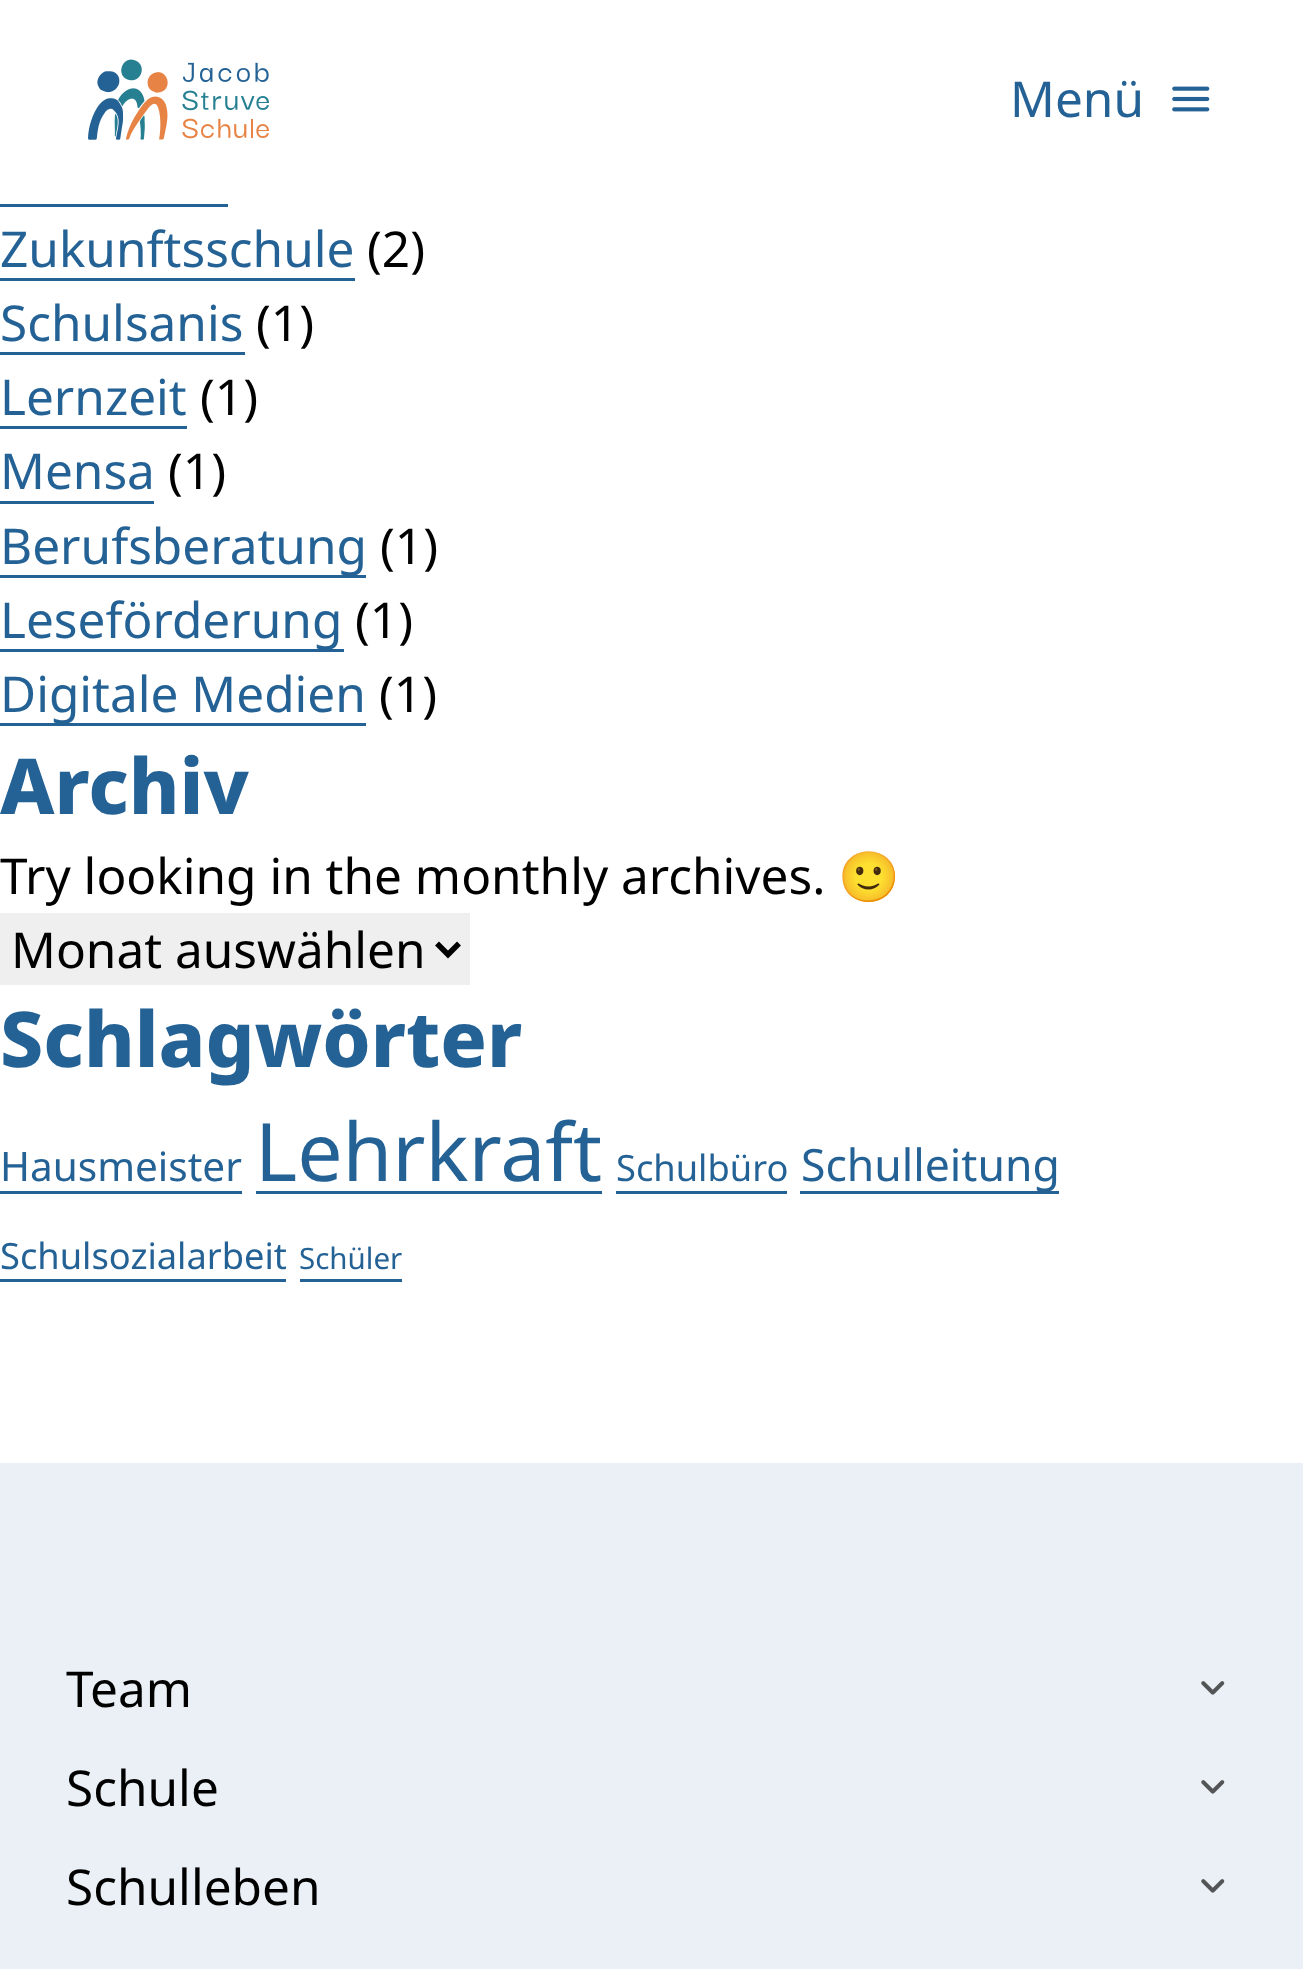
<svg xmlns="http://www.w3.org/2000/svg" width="1303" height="1969">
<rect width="100%" height="100%" fill="#fff"/>
<image x="88" y="59" width="181" height="81" href="media/1.png"/>
<text x="1010" y="117" style="font-family:Noto Sans;font-size:49.5px;fill:#246295">Menü</text>
<image x="1172" y="86" width="38" height="26" href="media/2.png"/>
<rect y="204" width="228" height="3" fill="#246295"/>
<text x="0" y="267" style="font-family:Noto Sans;font-size:49.5px;fill:#246295">Zukunftsschule</text>
<rect y="278" width="355" height="3" fill="#246295"/>
<text x="367" y="267" style="font-family:Noto Sans;font-size:49.5px;fill:#000">(2)</text>
<text x="0" y="341" style="font-family:Noto Sans;font-size:49.5px;fill:#246295">Schulsanis</text>
<rect y="352" width="245" height="3" fill="#246295"/>
<text x="256" y="341" style="font-family:Noto Sans;font-size:49.5px;fill:#000">(1)</text>
<text x="0" y="415" style="font-family:Noto Sans;font-size:49.5px;fill:#246295">Lernzeit</text>
<rect y="426" width="187" height="3" fill="#246295"/>
<text x="200" y="415" style="font-family:Noto Sans;font-size:49.5px;fill:#000">(1)</text>
<text x="0" y="489" style="font-family:Noto Sans;font-size:49.5px;fill:#246295">Mensa</text>
<rect y="501" width="154" height="3" fill="#246295"/>
<text x="168" y="489" style="font-family:Noto Sans;font-size:49.5px;fill:#000">(1)</text>
<rect y="575" width="366" height="3" fill="#246295"/>
<text x="0" y="564" style="font-family:Noto Sans;font-size:49.5px;fill:#246295">Berufsberatung</text>
<text x="380" y="564" style="font-family:Noto Sans;font-size:49.5px;fill:#000">(1)</text>
<rect y="649" width="344" height="3" fill="#246295"/>
<text x="0" y="638" style="font-family:Noto Sans;font-size:49.5px;fill:#246295">Leseförderung</text>
<text x="355" y="638" style="font-family:Noto Sans;font-size:49.5px;fill:#000">(1)</text>
<rect y="723" width="366" height="3" fill="#246295"/>
<text x="0" y="712" style="font-family:Noto Sans;font-size:49.5px;fill:#246295">Digitale Medien</text>
<text x="379" y="712" style="font-family:Noto Sans;font-size:49.5px;fill:#000">(1)</text>
<text x="0" y="814" style="font-family:Noto Sans;font-size:77px;font-weight:800;fill:#246295">Archiv</text>
<text x="0" y="894" style="font-family:Noto Sans;font-size:49.5px;fill:#000">Try looking in the monthly archives.</text>
<text x="838" y="894" style="font-family:Noto Color Emoji;font-size:49.5px;fill:#000">🙂</text>
<rect y="913" width="470" height="72" fill="#efefef"/>
<path d="M437 943.5l11 11l11-11" fill="none" stroke="#000" stroke-width="5.5"/>
<text x="11" y="968" style="font-family:Noto Sans;font-size:49.5px;fill:#000">Monat auswählen</text>
<text x="0" y="1067" style="font-family:Noto Sans;font-size:77px;font-weight:800;fill:#246295">Schlagwörter</text>
<text x="0" y="1181" style="font-family:Noto Sans;font-size:40.5px;fill:#246295">Hausmeister</text>
<rect y="1191" width="242" height="3" fill="#246295"/>
<text x="255" y="1181" style="font-family:Noto Sans;font-size:80.5px;fill:#246295">Lehrkraft</text>
<rect x="256" y="1191" width="346" height="3" fill="#246295"/>
<text x="616" y="1181" style="font-family:Noto Sans;font-size:36.25px;fill:#246295">Schulbüro</text>
<rect x="616" y="1191" width="171" height="3" fill="#246295"/>
<rect x="800" y="1191" width="259" height="3" fill="#246295"/>
<text x="801" y="1181" style="font-family:Noto Sans;font-size:44.5px;fill:#246295">Schulleitung</text>
<text x="0" y="1269" style="font-family:Noto Sans;font-size:36.25px;fill:#246295">Schulsozialarbeit</text>
<rect y="1279" width="286" height="3" fill="#246295"/>
<text x="299" y="1269" style="font-family:Noto Sans;font-size:29.5px;fill:#246295">Schüler</text>
<rect x="300" y="1279" width="102" height="3" fill="#246295"/>
<rect y="1463" width="1303" height="506" fill="#eaf0f5"/>
<text x="66" y="1707" style="font-family:Noto Sans;font-size:49.5px;fill:#000">Team</text>
<image x="1201" y="1681" width="24" height="14" href="media/3.png"/>
<text x="66" y="1806" style="font-family:Noto Sans;font-size:49.5px;fill:#000">Schule</text>
<image x="1201" y="1780" width="24" height="14" href="media/3.png"/>
<text x="66" y="1905" style="font-family:Noto Sans;font-size:49.5px;fill:#000">Schulleben</text>
<image x="1201" y="1879" width="24" height="14" href="media/3.png"/>
</svg>
